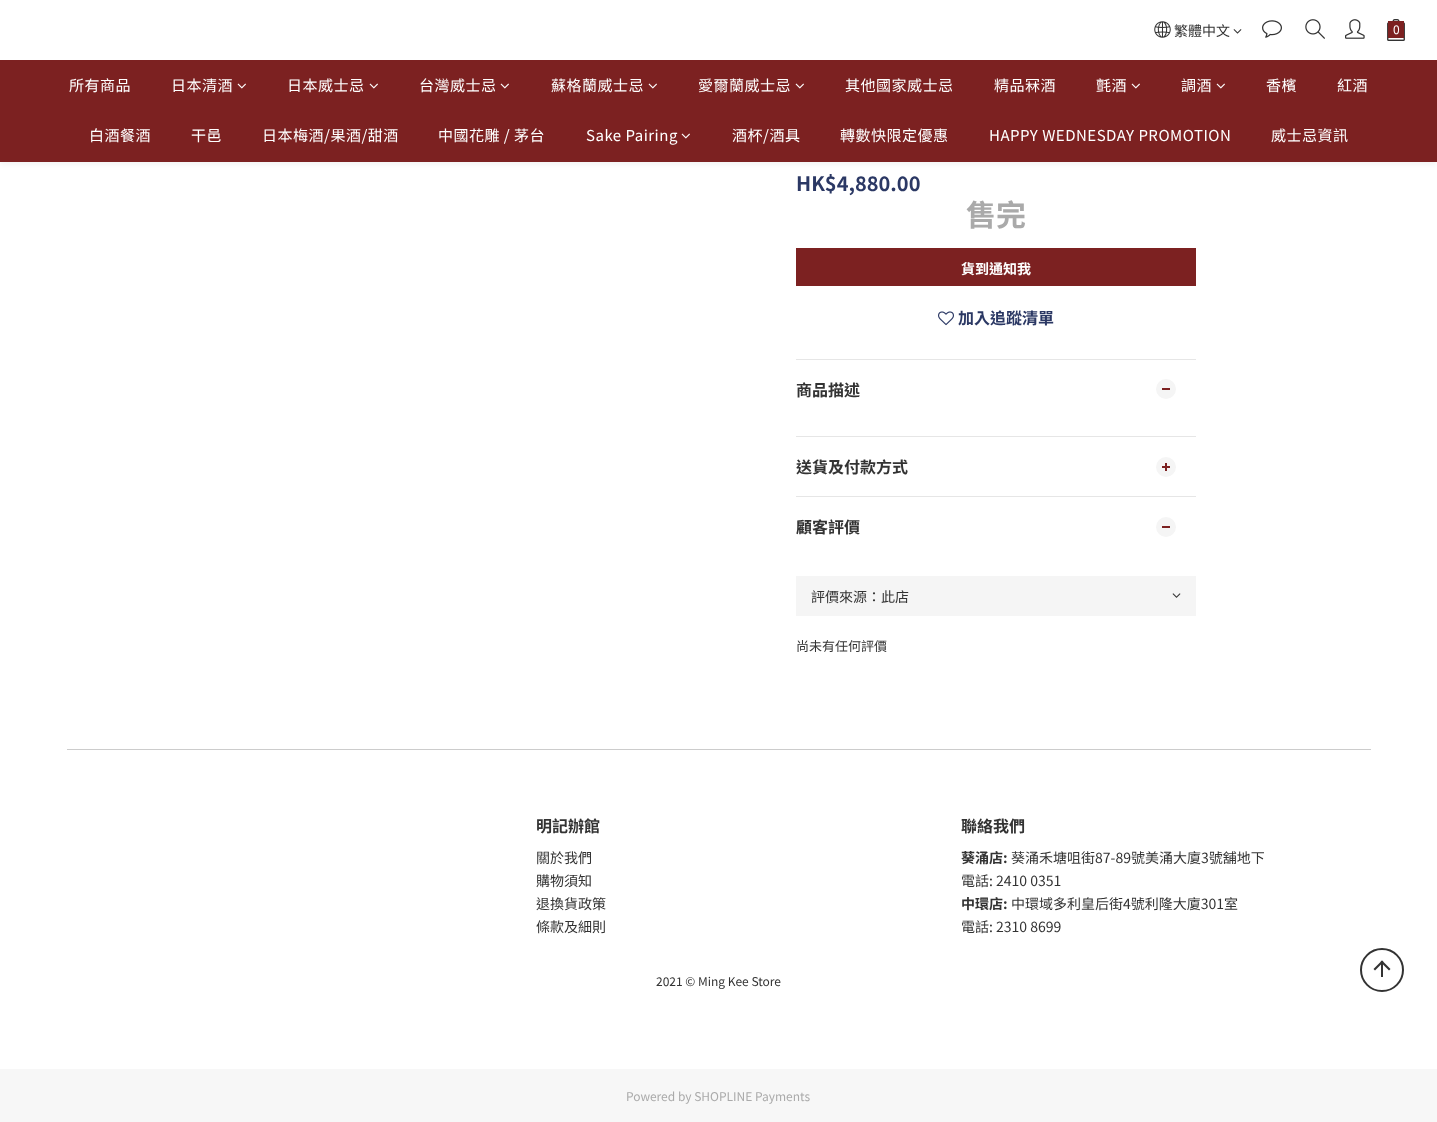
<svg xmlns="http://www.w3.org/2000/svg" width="1437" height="1122">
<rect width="100%" height="100%" fill="#fff"/>
<rect y="2" width="1437" height="162" fill="#0000000f" filter="blur(3px)"/>
<rect width="1437" height="60" fill="#fff"/>
<image x="1154" y="21" width="17" height="17" href="media/1.png"/>
<text x="1174" y="36" style="font-family:Noto Sans TC;font-size:14px;fill:#333">繁體中文</text>
<image x="1233" y="29" width="9" height="5" href="media/2.png"/>
<image x="1262" y="20" width="20" height="18" href="media/3.png"/>
<image x="1305" y="19" width="20" height="20" href="media/4.png"/>
<image x="1345" y="19" width="20" height="20" href="media/5.png"/>
<image x="1387" y="19" width="18" height="22" href="media/6.png"/>
<rect x="1388" y="21" width="16" height="17" fill="#7c2121"/>
<text x="1393" y="34" style="font-family:Noto Sans TC;font-size:12px;fill:#fff">0</text>
<rect y="60" width="1437" height="102" fill="#7c2121"/>
<text x="69" y="91" style="font-family:Noto Sans TC;font-size:15px;letter-spacing:0.5px;fill:#fff">所有商品</text>
<text x="171" y="91" style="font-family:Noto Sans TC;font-size:15px;letter-spacing:0.5px;fill:#fff">日本清酒</text>
<image x="237" y="83" width="9" height="6" href="media/7.png"/>
<text x="287" y="91" style="font-family:Noto Sans TC;font-size:15px;letter-spacing:0.5px;fill:#fff">日本威士忌</text>
<image x="369" y="83" width="9" height="6" href="media/7.png"/>
<text x="419" y="91" style="font-family:Noto Sans TC;font-size:15px;letter-spacing:0.5px;fill:#fff">台灣威士忌</text>
<image x="500" y="83" width="9" height="6" href="media/7.png"/>
<text x="551" y="91" style="font-family:Noto Sans TC;font-size:15px;letter-spacing:0.5px;fill:#fff">蘇格蘭威士忌</text>
<image x="648" y="83" width="9" height="6" href="media/7.png"/>
<text x="698" y="91" style="font-family:Noto Sans TC;font-size:15px;letter-spacing:0.5px;fill:#fff">愛爾蘭威士忌</text>
<image x="795" y="83" width="9" height="6" href="media/7.png"/>
<text x="845" y="91" style="font-family:Noto Sans TC;font-size:15px;letter-spacing:0.5px;fill:#fff">其他國家威士忌</text>
<text x="994" y="91" style="font-family:Noto Sans TC;font-size:15px;letter-spacing:0.5px;fill:#fff">精品冧酒</text>
<text x="1096" y="91" style="font-family:Noto Sans TC;font-size:15px;letter-spacing:0.5px;fill:#fff">氈酒</text>
<image x="1131" y="83" width="9" height="6" href="media/7.png"/>
<text x="1181" y="91" style="font-family:Noto Sans TC;font-size:15px;letter-spacing:0.5px;fill:#fff">調酒</text>
<image x="1216" y="83" width="9" height="6" href="media/7.png"/>
<text x="1266" y="91" style="font-family:Noto Sans TC;font-size:15px;letter-spacing:0.5px;fill:#fff">香檳</text>
<text x="1337" y="91" style="font-family:Noto Sans TC;font-size:15px;letter-spacing:0.5px;fill:#fff">紅酒</text>
<text x="89" y="141" style="font-family:Noto Sans TC;font-size:15px;letter-spacing:0.5px;fill:#fff">白酒餐酒</text>
<text x="191" y="141" style="font-family:Noto Sans TC;font-size:15px;letter-spacing:0.5px;fill:#fff">干邑</text>
<text x="262" y="141" style="font-family:Noto Sans TC;font-size:15px;letter-spacing:0.5px;fill:#fff">日本梅酒/果酒/甜酒</text>
<text x="438" y="141" style="font-family:Noto Sans TC;font-size:15px;letter-spacing:0.5px;fill:#fff">中國花雕 / 茅台</text>
<text x="586" y="141" style="font-family:Noto Sans TC;font-size:15px;letter-spacing:0.5px;fill:#fff">Sake Pairing</text>
<image x="681" y="133" width="9" height="6" href="media/7.png"/>
<text x="732" y="141" style="font-family:Noto Sans TC;font-size:15px;letter-spacing:0.5px;fill:#fff">酒杯/酒具</text>
<text x="840" y="141" style="font-family:Noto Sans TC;font-size:15px;letter-spacing:0.5px;fill:#fff">轉數快限定優惠</text>
<text x="989" y="141" style="font-family:Noto Sans TC;font-size:15px;letter-spacing:0.5px;fill:#fff">HAPPY WEDNESDAY PROMOTION</text>
<text x="1271" y="141" style="font-family:Noto Sans TC;font-size:15px;letter-spacing:0.5px;fill:#fff">威士忌資訊</text>
<text x="796" y="191" style="font-family:Noto Sans TC;font-size:20px;font-weight:bold;fill:#2b3864">HK$4,880.00</text>
<text x="966" y="226" style="font-family:Noto Sans TC;font-size:30px;font-weight:bold;fill:#aaa">售完</text>
<rect x="796" y="248" width="400" height="38" fill="#7c2121"/>
<text x="961" y="274" style="font-family:Noto Sans TC;font-size:14px;font-weight:bold;fill:#fff">貨到通知我</text>
<image x="938" y="311" width="16" height="15" href="media/8.png"/>
<text x="958" y="324" style="font-family:Noto Sans TC;font-size:16px;font-weight:bold;fill:#2b3864">加入追蹤清單</text>
<rect x="796" y="359" width="400" height="1" fill="#e6e6e6"/>
<text x="796" y="396" style="font-family:Noto Sans TC;font-size:16px;font-weight:bold;fill:#333">商品描述</text>
<circle cx="1166" cy="389" r="10" fill="#f5f5f5"/>
<rect x="1162" y="388" width="8" height="2" fill="#7c2121"/>
<rect x="796" y="436" width="400" height="1" fill="#e6e6e6"/>
<text x="796" y="473" style="font-family:Noto Sans TC;font-size:16px;font-weight:bold;fill:#333">送貨及付款方式</text>
<circle cx="1166" cy="467" r="10" fill="#f5f5f5"/>
<rect x="1162" y="466" width="8" height="2" fill="#7c2121"/>
<rect x="1165" y="463" width="2" height="8" fill="#7c2121"/>
<rect x="796" y="496" width="400" height="1" fill="#e6e6e6"/>
<text x="796" y="533" style="font-family:Noto Sans TC;font-size:16px;font-weight:bold;fill:#333">顧客評價</text>
<circle cx="1166" cy="527" r="10" fill="#f5f5f5"/>
<rect x="1162" y="526" width="8" height="2" fill="#7c2121"/>
<rect x="796" y="576" width="400" height="40" fill="#f5f5f5"/>
<text x="811" y="602" style="font-family:Noto Sans TC;font-size:14px;fill:#333">評價來源：此店</text>
<image x="1172" y="593" width="9" height="5" href="media/9.png"/>
<text x="796" y="651" style="font-family:Noto Sans TC;font-size:13px;fill:#333">尚未有任何評價</text>
<rect x="67" y="749" width="1304" height="1" fill="#ccc"/>
<text x="536" y="832" style="font-family:Noto Sans TC;font-size:16px;font-weight:bold;fill:#333">明記辦館</text>
<text x="536" y="863" style="font-family:Noto Sans TC;font-size:14px;fill:#333">關於我們</text>
<text x="536" y="886" style="font-family:Noto Sans TC;font-size:14px;fill:#333">購物須知</text>
<text x="536" y="909" style="font-family:Noto Sans TC;font-size:14px;fill:#333">退換貨政策</text>
<text x="536" y="932" style="font-family:Noto Sans TC;font-size:14px;fill:#333">條款及細則</text>
<text x="961" y="832" style="font-family:Noto Sans TC;font-size:16px;font-weight:bold;fill:#333">聯絡我們</text>
<text x="961" y="863" style="font-family:Noto Sans TC;font-size:14px;font-weight:bold;fill:#333">葵涌店:</text>
<text x="1011" y="863" style="font-family:Noto Sans TC;font-size:14px;fill:#333">葵涌禾塘咀街87-89號美涌大廈3號舖地下</text>
<text x="961" y="886" style="font-family:Noto Sans TC;font-size:14px;fill:#333">電話: 2410 0351</text>
<text x="961" y="909" style="font-family:Noto Sans TC;font-size:14px;font-weight:bold;fill:#333">中環店:</text>
<text x="1011" y="909" style="font-family:Noto Sans TC;font-size:14px;fill:#333">中環域多利皇后街4號利隆大廈301室</text>
<text x="961" y="932" style="font-family:Noto Sans TC;font-size:14px;fill:#333">電話: 2310 8699</text>
<text x="656" y="986" style="font-family:Noto Sans TC;font-size:12px;fill:#333">2021 © Ming Kee Store</text>
<rect y="1069" width="1437" height="53" fill="#f7f7f7"/>
<text x="626" y="1101" style="font-family:Noto Sans TC;font-size:12px;fill:#aaa">Powered by SHOPLINE Payments</text>
<circle cx="1382" cy="970" r="21" fill="none" stroke="#333" stroke-width="2"/>
<path d="M1382 960.5l8.5 8.5l-1.5 1.5l-8.5-8.5z" fill="#333"/>
<path d="M1382 960.5l1.5 1.5l-8.5 8.5l-1.5-1.5z" fill="#333"/>
<rect x="1381" y="963" width="2" height="14" fill="#333"/>
</svg>
